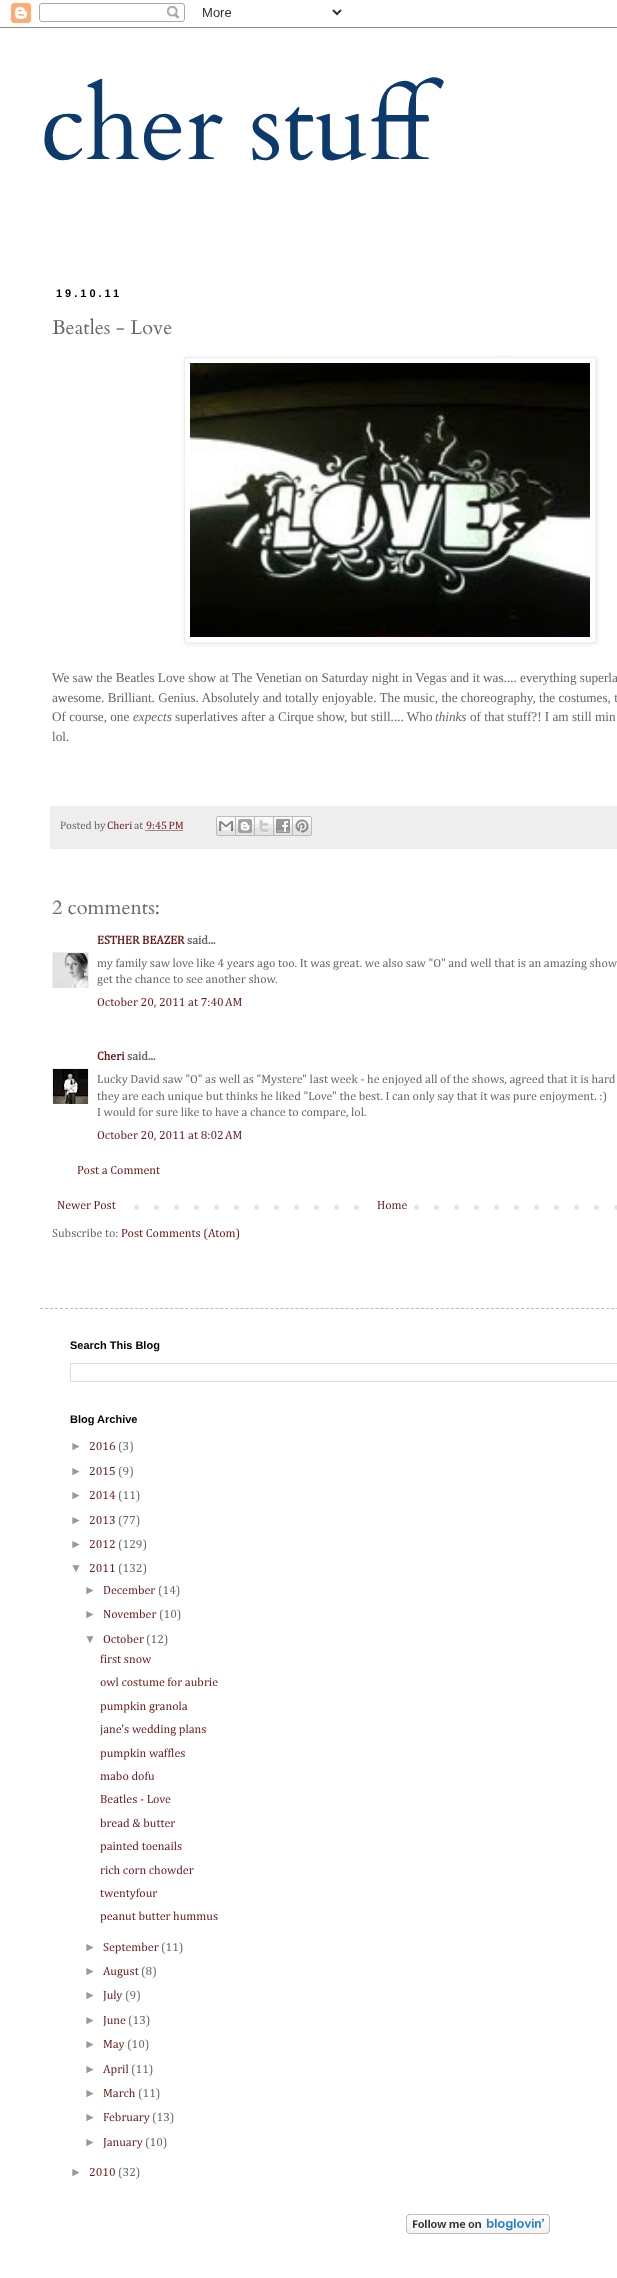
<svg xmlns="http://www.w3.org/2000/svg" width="617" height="2278">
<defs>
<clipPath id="clip1"><path d="M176 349h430v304h-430zm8 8h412v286h-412z" clip-rule="evenodd"/></clipPath>
<clipPath id="clip2"><rect x="52" y="952" width="37" height="36"/></clipPath>
<clipPath id="clip3"><rect x="52" y="1068" width="37" height="36"/></clipPath>
</defs>
<rect width="100%" height="100%" fill="#fff"/>
<image x="0" y="3" width="617" height="25" href="media/1.png"/>
<text x="40" y="159" style="font-family:Cardo;font-size:100px;fill:#0d3a6c">cher stuff</text>
<text x="56" y="297" style="font-family:Liberation Sans;font-size:11px;font-weight:bold;letter-spacing:3px;fill:#000">19.10.11</text>
<text x="52" y="334" style="font-family:Cardo;font-size:20px;fill:#666">Beatles - Love</text>
<g clip-path="url(#clip1)">
<rect x="185" y="358" width="412" height="286" fill="#0000001a" filter="blur(2.5px)"/>
</g>
<rect x="184.5" y="357.5" width="411" height="285" fill="none" stroke="#eee"/>
<image x="190" y="363" width="400" height="274" href="media/2.png"/>
<text x="52" y="682" style="font-family:Liberation Serif;font-size:13.2px;fill:#666">We saw the Beatles Love show at The Venetian on Saturday night in Vegas and it was.... everything superla</text>
<text x="52" y="702" style="font-family:Liberation Serif;font-size:13.2px;fill:#666">awesome. Brilliant. Genius. Absolutely and totally enjoyable. The music, the choreography, the costumes, t</text>
<text x="52" y="721" style="font-family:Liberation Serif;font-size:13.2px;fill:#666">Of course, one</text>
<text x="133" y="721" style="font-family:Liberation Serif;font-size:13.2px;font-style:italic;fill:#666">expects</text>
<text x="175" y="721" style="font-family:Liberation Serif;font-size:13.2px;fill:#666">superlatives after a Cirque show, but still.... Who</text>
<text x="435" y="721" style="font-family:Liberation Serif;font-size:13.2px;font-style:italic;fill:#666">thinks</text>
<text x="470" y="721" style="font-family:Liberation Serif;font-size:13.2px;fill:#666">of that stuff?! I am still min</text>
<text x="52" y="741" style="font-family:Liberation Serif;font-size:13.2px;fill:#666">lol.</text>
<rect x="50" y="806" width="567" height="43" fill="#eee"/>
<text x="60" y="829" style="font-family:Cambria;font-size:11px;fill:#666">Posted by</text>
<text x="107" y="829" style="font-family:Cambria;font-size:11px;fill:#6a1717">Cheri</text>
<text x="134" y="829" style="font-family:Cambria;font-size:11px;fill:#666">at</text>
<path d="M145.5 830.5h37" fill="none" stroke="#6a1717" stroke-dasharray="1 1"/>
<text x="146" y="829" style="font-family:Cambria;font-size:11px;fill:#6a1717">9:45 PM</text>
<image x="216" y="816" width="20" height="20" href="media/3.png"/>
<image x="236" y="816" width="19" height="20" href="media/4.png"/>
<image x="255" y="816" width="19" height="20" href="media/5.png"/>
<image x="274" y="816" width="19" height="20" href="media/6.png"/>
<image x="293" y="816" width="19" height="20" href="media/7.png"/>
<text x="52" y="914" style="font-family:Cardo;font-size:20px;fill:#666">2 comments:</text>
<text x="97" y="944" style="font-family:Cambria;font-size:12px;font-weight:bold;fill:#6a1717">ESTHER BEAZER</text>
<text x="187" y="944" style="font-family:Cambria;font-size:12px;font-weight:bold;fill:#666">said...</text>
<g clip-path="url(#clip2)">
<rect x="52.5" y="952.5" width="36" height="36" fill="none" stroke="#eee"/>
</g>
<image x="53" y="953" width="35" height="35" href="media/8.png"/>
<text x="97" y="967" style="font-family:Cambria;font-size:12px;fill:#666">my family saw love like 4 years ago too. It was great. we also saw "O" and well that is an amazing show</text>
<text x="97" y="983" style="font-family:Cambria;font-size:12px;fill:#666">get the chance to see another show.</text>
<text x="97" y="1006" style="font-family:Cambria;font-size:12px;fill:#6a1717">October 20, 2011 at 7:40 AM</text>
<text x="97" y="1060" style="font-family:Cambria;font-size:12px;font-weight:bold;fill:#6a1717">Cheri</text>
<text x="127" y="1060" style="font-family:Cambria;font-size:12px;font-weight:bold;fill:#666">said...</text>
<g clip-path="url(#clip3)">
<rect x="52.5" y="1068.5" width="36" height="36" fill="none" stroke="#eee"/>
</g>
<image x="53" y="1069" width="35" height="35" href="media/9.png"/>
<text x="97" y="1083" style="font-family:Cambria;font-size:12px;fill:#666">Lucky David saw "O" as well as "Mystere" last week - he enjoyed all of the shows, agreed that it is hard</text>
<text x="97" y="1100" style="font-family:Cambria;font-size:12px;fill:#666">they are each unique but thinks he liked "Love" the best. I can only say that it was pure enjoyment. :)</text>
<text x="97" y="1116" style="font-family:Cambria;font-size:12px;fill:#666">I would for sure like to have a chance to compare, lol.</text>
<text x="97" y="1139" style="font-family:Cambria;font-size:12px;fill:#6a1717">October 20, 2011 at 8:02 AM</text>
<text x="77" y="1174" style="font-family:Cambria;font-size:12px;fill:#6a1717">Post a Comment</text>
<image x="134" y="1205" width="483" height="5" href="media/10.png"/>
<text x="57" y="1209" style="font-family:Cambria;font-size:12px;fill:#6a1717">Newer Post</text>
<rect x="374" y="1205" width="26" height="5" fill="#fff"/>
<text x="377" y="1209" style="font-family:Cambria;font-size:12px;fill:#6a1717">Home</text>
<text x="52" y="1237" style="font-family:Cambria;font-size:12px;fill:#666">Subscribe to:</text>
<text x="121" y="1237" style="font-family:Cambria;font-size:12px;fill:#6a1717">Post Comments (Atom)</text>
<path d="M40 1308.5h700" fill="none" stroke="#bbb" stroke-dasharray="3 2.01"/>
<text x="70" y="1349" style="font-family:Liberation Sans;font-size:11px;font-weight:bold;fill:#000">Search This Blog</text>
<rect x="70.5" y="1363.5" width="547" height="18" fill="none" stroke="#ddd"/>
<text x="70" y="1423" style="font-family:Liberation Sans;font-size:11px;font-weight:bold;fill:#000">Blog Archive</text>
<text x="70" y="1450" style="font-family:Liberation Sans;font-size:12px;fill:#999">►</text>
<text x="89" y="1450" style="font-family:Cambria;font-size:12px;fill:#6a1717">2016</text>
<text x="118" y="1450" style="font-family:Cambria;font-size:12px;fill:#666">(3)</text>
<text x="70" y="1475" style="font-family:Liberation Sans;font-size:12px;fill:#999">►</text>
<text x="89" y="1475" style="font-family:Cambria;font-size:12px;fill:#6a1717">2015</text>
<text x="118" y="1475" style="font-family:Cambria;font-size:12px;fill:#666">(9)</text>
<text x="70" y="1499" style="font-family:Liberation Sans;font-size:12px;fill:#999">►</text>
<text x="89" y="1499" style="font-family:Cambria;font-size:12px;fill:#6a1717">2014</text>
<text x="118" y="1499" style="font-family:Cambria;font-size:12px;fill:#666">(11)</text>
<text x="70" y="1524" style="font-family:Liberation Sans;font-size:12px;fill:#999">►</text>
<text x="89" y="1524" style="font-family:Cambria;font-size:12px;fill:#6a1717">2013</text>
<text x="118" y="1524" style="font-family:Cambria;font-size:12px;fill:#666">(77)</text>
<text x="70" y="1548" style="font-family:Liberation Sans;font-size:12px;fill:#999">►</text>
<text x="89" y="1548" style="font-family:Cambria;font-size:12px;fill:#6a1717">2012</text>
<text x="118" y="1548" style="font-family:Cambria;font-size:12px;fill:#666">(129)</text>
<text x="70" y="1572" style="font-family:Liberation Sans;font-size:12px;fill:#999">▼</text>
<text x="89" y="1572" style="font-family:Cambria;font-size:12px;fill:#6a1717">2011</text>
<text x="118" y="1572" style="font-family:Cambria;font-size:12px;fill:#666">(132)</text>
<text x="84" y="1594" style="font-family:Liberation Sans;font-size:12px;fill:#999">►</text>
<text x="103" y="1594" style="font-family:Cambria;font-size:12px;fill:#6a1717">December</text>
<text x="158" y="1594" style="font-family:Cambria;font-size:12px;fill:#666">(14)</text>
<text x="84" y="1618" style="font-family:Liberation Sans;font-size:12px;fill:#999">►</text>
<text x="103" y="1618" style="font-family:Cambria;font-size:12px;fill:#6a1717">November</text>
<text x="159" y="1618" style="font-family:Cambria;font-size:12px;fill:#666">(10)</text>
<text x="84" y="1643" style="font-family:Liberation Sans;font-size:12px;fill:#999">▼</text>
<text x="103" y="1643" style="font-family:Cambria;font-size:12px;fill:#6a1717">October</text>
<text x="146" y="1643" style="font-family:Cambria;font-size:12px;fill:#666">(12)</text>
<text x="100" y="1663" style="font-family:Cambria;font-size:12px;fill:#6a1717">first snow</text>
<text x="100" y="1686" style="font-family:Cambria;font-size:12px;fill:#6a1717">owl costume for aubrie</text>
<text x="100" y="1710" style="font-family:Cambria;font-size:12px;fill:#6a1717">pumpkin granola</text>
<text x="100" y="1733" style="font-family:Cambria;font-size:12px;fill:#6a1717">jane's wedding plans</text>
<text x="100" y="1757" style="font-family:Cambria;font-size:12px;fill:#6a1717">pumpkin waffles</text>
<text x="100" y="1780" style="font-family:Cambria;font-size:12px;fill:#6a1717">mabo dofu</text>
<text x="100" y="1803" style="font-family:Cambria;font-size:12px;fill:#6a1717">Beatles - Love</text>
<text x="100" y="1827" style="font-family:Cambria;font-size:12px;fill:#6a1717">bread &amp; butter</text>
<text x="100" y="1850" style="font-family:Cambria;font-size:12px;fill:#6a1717">painted toenails</text>
<text x="100" y="1874" style="font-family:Cambria;font-size:12px;fill:#6a1717">rich corn chowder</text>
<text x="100" y="1897" style="font-family:Cambria;font-size:12px;fill:#6a1717">twentyfour</text>
<text x="100" y="1920" style="font-family:Cambria;font-size:12px;fill:#6a1717">peanut butter hummus</text>
<text x="84" y="1951" style="font-family:Liberation Sans;font-size:12px;fill:#999">►</text>
<text x="103" y="1951" style="font-family:Cambria;font-size:12px;fill:#6a1717">September</text>
<text x="161" y="1951" style="font-family:Cambria;font-size:12px;fill:#666">(11)</text>
<text x="84" y="1975" style="font-family:Liberation Sans;font-size:12px;fill:#999">►</text>
<text x="103" y="1975" style="font-family:Cambria;font-size:12px;fill:#6a1717">August</text>
<text x="141" y="1975" style="font-family:Cambria;font-size:12px;fill:#666">(8)</text>
<text x="84" y="1999" style="font-family:Liberation Sans;font-size:12px;fill:#999">►</text>
<text x="103" y="1999" style="font-family:Cambria;font-size:12px;fill:#6a1717">July</text>
<text x="125" y="1999" style="font-family:Cambria;font-size:12px;fill:#666">(9)</text>
<text x="84" y="2024" style="font-family:Liberation Sans;font-size:12px;fill:#999">►</text>
<text x="103" y="2024" style="font-family:Cambria;font-size:12px;fill:#6a1717">June</text>
<text x="128" y="2024" style="font-family:Cambria;font-size:12px;fill:#666">(13)</text>
<text x="84" y="2048" style="font-family:Liberation Sans;font-size:12px;fill:#999">►</text>
<text x="103" y="2048" style="font-family:Cambria;font-size:12px;fill:#6a1717">May</text>
<text x="127" y="2048" style="font-family:Cambria;font-size:12px;fill:#666">(10)</text>
<text x="84" y="2073" style="font-family:Liberation Sans;font-size:12px;fill:#999">►</text>
<text x="103" y="2073" style="font-family:Cambria;font-size:12px;fill:#6a1717">April</text>
<text x="131" y="2073" style="font-family:Cambria;font-size:12px;fill:#666">(11)</text>
<text x="84" y="2097" style="font-family:Liberation Sans;font-size:12px;fill:#999">►</text>
<text x="103" y="2097" style="font-family:Cambria;font-size:12px;fill:#6a1717">March</text>
<text x="138" y="2097" style="font-family:Cambria;font-size:12px;fill:#666">(11)</text>
<text x="84" y="2121" style="font-family:Liberation Sans;font-size:12px;fill:#999">►</text>
<text x="103" y="2121" style="font-family:Cambria;font-size:12px;fill:#6a1717">February</text>
<text x="152" y="2121" style="font-family:Cambria;font-size:12px;fill:#666">(13)</text>
<text x="84" y="2146" style="font-family:Liberation Sans;font-size:12px;fill:#999">►</text>
<text x="103" y="2146" style="font-family:Cambria;font-size:12px;fill:#6a1717">January</text>
<text x="145" y="2146" style="font-family:Cambria;font-size:12px;fill:#666">(10)</text>
<text x="70" y="2176" style="font-family:Liberation Sans;font-size:12px;fill:#999">►</text>
<text x="89" y="2176" style="font-family:Cambria;font-size:12px;fill:#6a1717">2010</text>
<text x="118" y="2176" style="font-family:Cambria;font-size:12px;fill:#666">(32)</text>
<image x="406" y="2214" width="144" height="20" href="media/11.png"/>
</svg>
